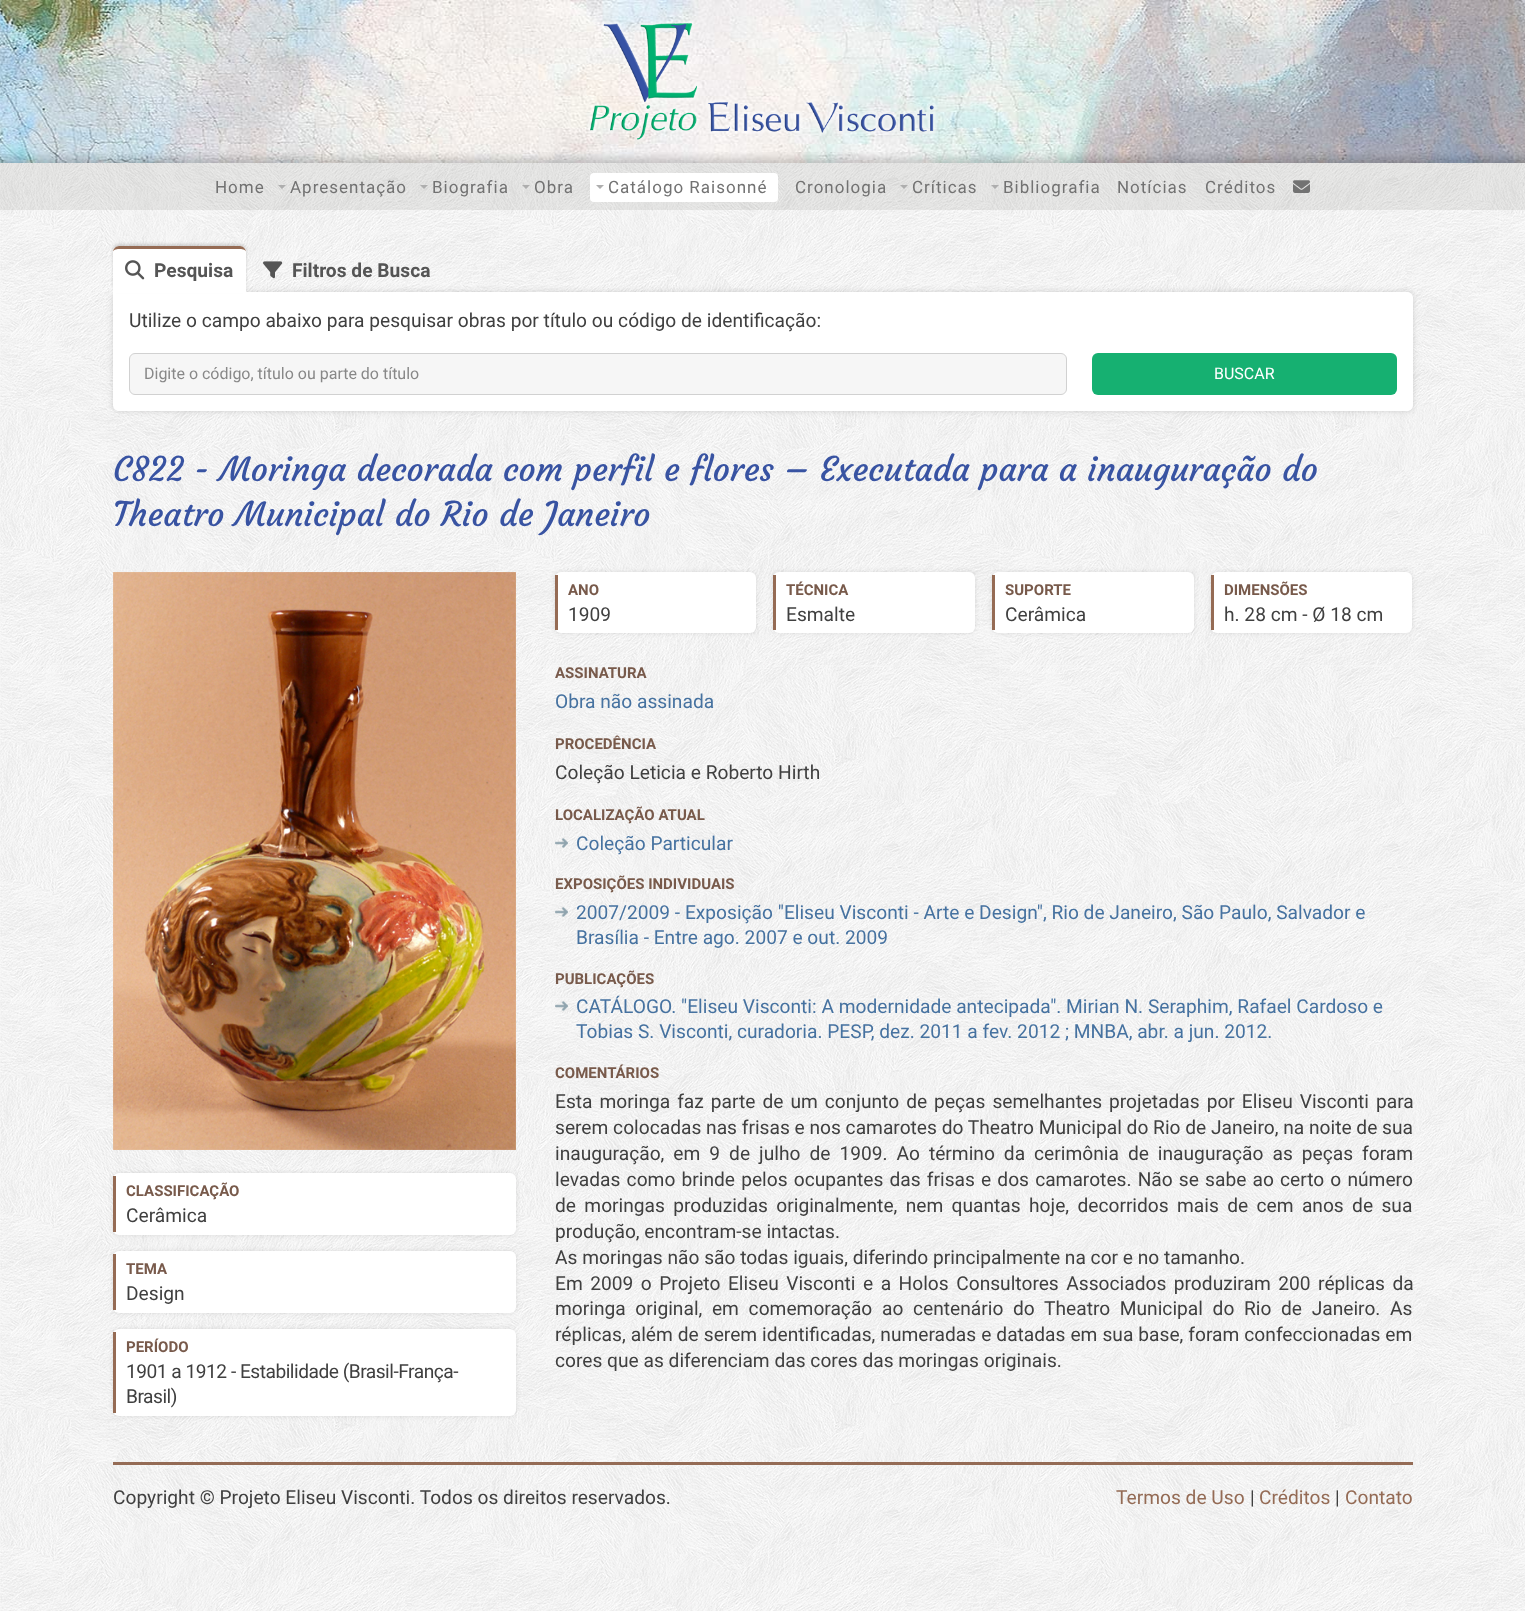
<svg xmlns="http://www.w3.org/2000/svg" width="1525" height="1611">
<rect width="100%" height="100%" fill="#fff"/>
<image x="0" y="163" width="1525" height="1448" href="media/1.png"/>
<rect y="163" width="1525" height="47" fill="#5a554b1a"/>
<image x="0" y="0" width="1525" height="163" href="media/2.png"/>
<image x="587" y="20" width="350" height="123" href="media/3.png"/>
<text x="215" y="193" style="font-family:Roboto;font-size:17px;letter-spacing:1px;fill:#727272">Home</text>
<path d="M278 185h8l-4 4z" fill="#aeaeae"/>
<text x="290" y="193" style="font-family:Roboto;font-size:17px;letter-spacing:1px;fill:#727272">Apresentação</text>
<path d="M420 185h8l-4 4z" fill="#aeaeae"/>
<text x="432" y="193" style="font-family:Roboto;font-size:17px;letter-spacing:1px;fill:#727272">Biografia</text>
<path d="M522 185h8l-4 4z" fill="#aeaeae"/>
<text x="534" y="193" style="font-family:Roboto;font-size:17px;letter-spacing:1px;fill:#727272">Obra</text>
<rect x="590" y="173" width="188" height="29" rx="4" fill="#fff"/>
<path d="M596 185h8l-4 4z" fill="#aeaeae"/>
<text x="608" y="193" style="font-family:Roboto;font-size:17px;letter-spacing:1px;fill:#727272">Catálogo Raisonné</text>
<text x="795" y="193" style="font-family:Roboto;font-size:17px;letter-spacing:1px;fill:#727272">Cronologia</text>
<path d="M900 185h8l-4 4z" fill="#aeaeae"/>
<text x="912" y="193" style="font-family:Roboto;font-size:17px;letter-spacing:1px;fill:#727272">Críticas</text>
<path d="M991 185h8l-4 4z" fill="#aeaeae"/>
<text x="1003" y="193" style="font-family:Roboto;font-size:17px;letter-spacing:1px;fill:#727272">Bibliografia</text>
<text x="1117" y="193" style="font-family:Roboto;font-size:17px;letter-spacing:1px;fill:#727272">Notícias</text>
<text x="1205" y="193" style="font-family:Roboto;font-size:17px;letter-spacing:1px;fill:#727272">Créditos</text>
<image x="1293" y="180" width="17" height="13" href="media/4.png"/>
<rect x="113" y="292" width="1300" height="119" rx="6" fill="#00000026" filter="blur(3px)"/>
<path d="M113 292h1294c3.5 0 6 2.5 6 6v107c0 3.5-2.5 6-6 6h-1288c-3.5 0-6-2.5-6-6z" fill="#fff"/>
<rect x="113" y="244" width="133" height="47" rx="6" fill="#00000026" filter="blur(1.5px)"/>
<path d="M119 246h121c3.5 0 6 2.5 6 6v41h-133v-41c0-3.5 2.5-6 6-6z" fill="#fff"/>
<path d="M119 246c-3 0-6 3-6 6c0-2 3-3 6-3h121c3 0 6 1 6 3c0-3-3-6-6-6z" fill="#956b54"/>
<image x="125" y="260" width="20" height="20" href="media/5.png"/>
<text x="154" y="277" style="font-family:Roboto;font-size:19.2px;font-weight:bold;fill:#555">Pesquisa</text>
<image x="263" y="261" width="20" height="18" href="media/6.png"/>
<text x="292" y="277" style="font-family:Roboto;font-size:19.2px;font-weight:bold;fill:#555">Filtros de Busca</text>
<text x="129" y="327" style="font-family:Roboto;font-size:19.2px;fill:#404040">Utilize o campo abaixo para pesquisar obras por título ou código de identificação:</text>
<rect x="129.5" y="353.5" width="937" height="41" rx="5.5" fill="#f6f6f6" stroke="#d1d1d1"/>
<text x="144" y="379" style="font-family:Roboto;font-size:16px;fill:#888">Digite o código, título ou parte do título</text>
<rect x="1092" y="353" width="305" height="42" rx="6" fill="#16b071"/>
<text x="1214" y="379" style="font-family:Roboto;font-size:16px;fill:#fff">BUSCAR</text>
<text x="113" y="481" style="font-family:Courgette;font-size:33.6px;fill:#3853a2">C822 - Moringa decorada com perfil e flores – Executada para a inauguração do</text>
<text x="113" y="526" style="font-family:Courgette;font-size:33.6px;fill:#3853a2">Theatro Municipal do Rio de Janeiro</text>
<image x="113" y="572" width="403" height="578" href="media/7.png"/>
<rect x="113" y="1173" width="403" height="62" rx="6" fill="#0000001a" filter="blur(2.5px)"/>
<rect x="113" y="1173" width="403" height="62" rx="6" fill="#fff"/>
<rect x="113" y="1176" width="3" height="56" fill="#956b54"/>
<text x="126" y="1196" style="font-family:Roboto;font-size:15px;font-weight:bold;fill:#785a4b">CLASSIFICAÇÃO</text>
<text x="126" y="1222" style="font-family:Roboto;font-size:19.2px;fill:#404040">Cerâmica</text>
<rect x="113" y="1251" width="403" height="62" rx="6" fill="#0000001a" filter="blur(2.5px)"/>
<rect x="113" y="1251" width="403" height="62" rx="6" fill="#fff"/>
<rect x="113" y="1254" width="3" height="56" fill="#956b54"/>
<text x="126" y="1274" style="font-family:Roboto;font-size:15px;font-weight:bold;fill:#785a4b">TEMA</text>
<text x="126" y="1300" style="font-family:Roboto;font-size:19.2px;fill:#404040">Design</text>
<rect x="113" y="1329" width="403" height="87" rx="6" fill="#0000001a" filter="blur(2.5px)"/>
<rect x="113" y="1329" width="403" height="87" rx="6" fill="#fff"/>
<rect x="113" y="1332" width="3" height="81" fill="#956b54"/>
<text x="126" y="1352" style="font-family:Roboto;font-size:15px;font-weight:bold;fill:#785a4b">PERÍODO</text>
<text x="126" y="1378" style="font-family:Roboto;font-size:19.2px;letter-spacing:-0.5px;fill:#404040">1901 a 1912 - Estabilidade (Brasil-França-</text>
<text x="126" y="1403" style="font-family:Roboto;font-size:19.2px;letter-spacing:-0.5px;fill:#404040">Brasil)</text>
<rect x="555" y="572" width="201" height="61" rx="6" fill="#0000001a" filter="blur(2.5px)"/>
<rect x="555" y="572" width="201" height="61" rx="6" fill="#fff"/>
<rect x="555" y="575" width="3" height="55" fill="#956b54"/>
<text x="568" y="595" style="font-family:Roboto;font-size:15px;font-weight:bold;fill:#785a4b">ANO</text>
<text x="568" y="621" style="font-family:Roboto;font-size:19.2px;fill:#404040">1909</text>
<rect x="773" y="572" width="202" height="61" rx="6" fill="#0000001a" filter="blur(2.5px)"/>
<rect x="773" y="572" width="202" height="61" rx="6" fill="#fff"/>
<rect x="773" y="575" width="3" height="55" fill="#956b54"/>
<text x="786" y="595" style="font-family:Roboto;font-size:15px;font-weight:bold;fill:#785a4b">TÉCNICA</text>
<text x="786" y="621" style="font-family:Roboto;font-size:19.2px;fill:#404040">Esmalte</text>
<rect x="992" y="572" width="202" height="61" rx="6" fill="#0000001a" filter="blur(2.5px)"/>
<rect x="992" y="572" width="202" height="61" rx="6" fill="#fff"/>
<rect x="992" y="575" width="3" height="55" fill="#956b54"/>
<text x="1005" y="595" style="font-family:Roboto;font-size:15px;font-weight:bold;fill:#785a4b">SUPORTE</text>
<text x="1005" y="621" style="font-family:Roboto;font-size:19.2px;fill:#404040">Cerâmica</text>
<rect x="1211" y="572" width="201" height="61" rx="6" fill="#0000001a" filter="blur(2.5px)"/>
<rect x="1211" y="572" width="201" height="61" rx="6" fill="#fff"/>
<rect x="1211" y="575" width="3" height="55" fill="#956b54"/>
<text x="1224" y="595" style="font-family:Roboto;font-size:15px;font-weight:bold;fill:#785a4b">DIMENSÕES</text>
<text x="1224" y="621" style="font-family:Roboto;font-size:19.2px;fill:#404040">h. 28 cm - Ø 18 cm</text>
<text x="555" y="678" style="font-family:Roboto;font-size:15px;font-weight:bold;fill:#785a4b">ASSINATURA</text>
<text x="555" y="708" style="font-family:Roboto;font-size:19.2px;fill:#4672a0">Obra não assinada</text>
<text x="555" y="749" style="font-family:Roboto;font-size:15px;font-weight:bold;fill:#785a4b">PROCEDÊNCIA</text>
<text x="555" y="779" style="font-family:Roboto;font-size:19.2px;fill:#404040">Coleção Leticia e Roberto Hirth</text>
<text x="555" y="820" style="font-family:Roboto;font-size:15px;font-weight:bold;fill:#785a4b">LOCALIZAÇÃO ATUAL</text>
<image x="555" y="838" width="13" height="10" href="media/8.png"/>
<text x="576" y="850" style="font-family:Roboto;font-size:19.2px;fill:#4672a0">Coleção Particular</text>
<text x="555" y="889" style="font-family:Roboto;font-size:15px;font-weight:bold;fill:#785a4b">EXPOSIÇÕES INDIVIDUAIS</text>
<image x="555" y="907" width="13" height="10" href="media/9.png"/>
<text x="576" y="919" style="font-family:Roboto;font-size:19.2px;fill:#4672a0">2007/2009 - Exposição "Eliseu Visconti - Arte e Design", Rio de Janeiro, São Paulo, Salvador e</text>
<text x="576" y="944" style="font-family:Roboto;font-size:19.2px;fill:#4672a0">Brasília - Entre ago. 2007 e out. 2009</text>
<text x="555" y="984" style="font-family:Roboto;font-size:15px;font-weight:bold;fill:#785a4b">PUBLICAÇÕES</text>
<image x="555" y="1001" width="13" height="10" href="media/10.png"/>
<text x="576" y="1013" style="font-family:Roboto;font-size:19.2px;fill:#4672a0">CATÁLOGO. "Eliseu Visconti: A modernidade antecipada". Mirian N. Seraphim, Rafael Cardoso e</text>
<text x="576" y="1038" style="font-family:Roboto;font-size:19.2px;fill:#4672a0">Tobias S. Visconti, curadoria. PESP, dez. 2011 a fev. 2012 ; MNBA, abr. a jun. 2012.</text>
<text x="555" y="1078" style="font-family:Roboto;font-size:15px;font-weight:bold;fill:#785a4b">COMENTÁRIOS</text>
<text x="555" y="1108" word-spacing="2.25" style="font-family:Roboto;font-size:19.2px;fill:#404040">Esta moringa faz parte de um conjunto de peças semelhantes projetadas por Eliseu Visconti para</text>
<text x="555" y="1134" style="font-family:Roboto;font-size:19.2px;fill:#404040">serem colocadas nas frisas e nos camarotes do Theatro Municipal do Rio de Janeiro, na noite de sua</text>
<text x="555" y="1160" word-spacing="4.25" style="font-family:Roboto;font-size:19.2px;fill:#404040">inauguração, em 9 de julho de 1909. Ao término da cerimônia de inauguração as peças foram</text>
<text x="555" y="1186" word-spacing="1.4" style="font-family:Roboto;font-size:19.2px;fill:#404040">levadas como brinde pelos ocupantes das frisas e dos camarotes. Não se sabe ao certo o número</text>
<text x="555" y="1212" word-spacing="3.6" style="font-family:Roboto;font-size:19.2px;fill:#404040">de moringas produzidas originalmente, nem quantas hoje, decorridos mais de cem anos de sua</text>
<text x="555" y="1238" style="font-family:Roboto;font-size:19.2px;fill:#404040">produção, encontram-se intactas.</text>
<text x="555" y="1264" style="font-family:Roboto;font-size:19.2px;fill:#404040">As moringas não são todas iguais, diferindo principalmente na cor e no tamanho.</text>
<text x="555" y="1290" word-spacing="2.75" style="font-family:Roboto;font-size:19.2px;fill:#404040">Em 2009 o Projeto Eliseu Visconti e a Holos Consultores Associados produziram 200 réplicas da</text>
<text x="555" y="1315" word-spacing="4.9" style="font-family:Roboto;font-size:19.2px;fill:#404040">moringa original, em comemoração ao centenário do Theatro Municipal do Rio de Janeiro. As</text>
<text x="555" y="1341" word-spacing="0.25" style="font-family:Roboto;font-size:19.2px;fill:#404040">réplicas, além de serem identificadas, numeradas e datadas em sua base, foram confeccionadas em</text>
<text x="555" y="1367" style="font-family:Roboto;font-size:19.2px;fill:#404040">cores que as diferenciam das cores das moringas originais.</text>
<rect x="113" y="1462" width="1300" height="3" fill="#946b55"/>
<text x="113" y="1504" style="font-family:Roboto;font-size:19.2px;fill:#404040">Copyright © Projeto Eliseu Visconti. Todos os direitos reservados.</text>
<text x="1116" y="1504" style="font-family:Roboto;font-size:19.2px;fill:#946b55">Termos de Uso</text>
<text x="1250" y="1504" style="font-family:Roboto;font-size:19.2px;fill:#404040">|</text>
<text x="1259" y="1504" style="font-family:Roboto;font-size:19.2px;fill:#946b55">Créditos</text>
<text x="1335" y="1504" style="font-family:Roboto;font-size:19.2px;fill:#404040">|</text>
<text x="1345" y="1504" style="font-family:Roboto;font-size:19.2px;fill:#946b55">Contato</text>
</svg>
